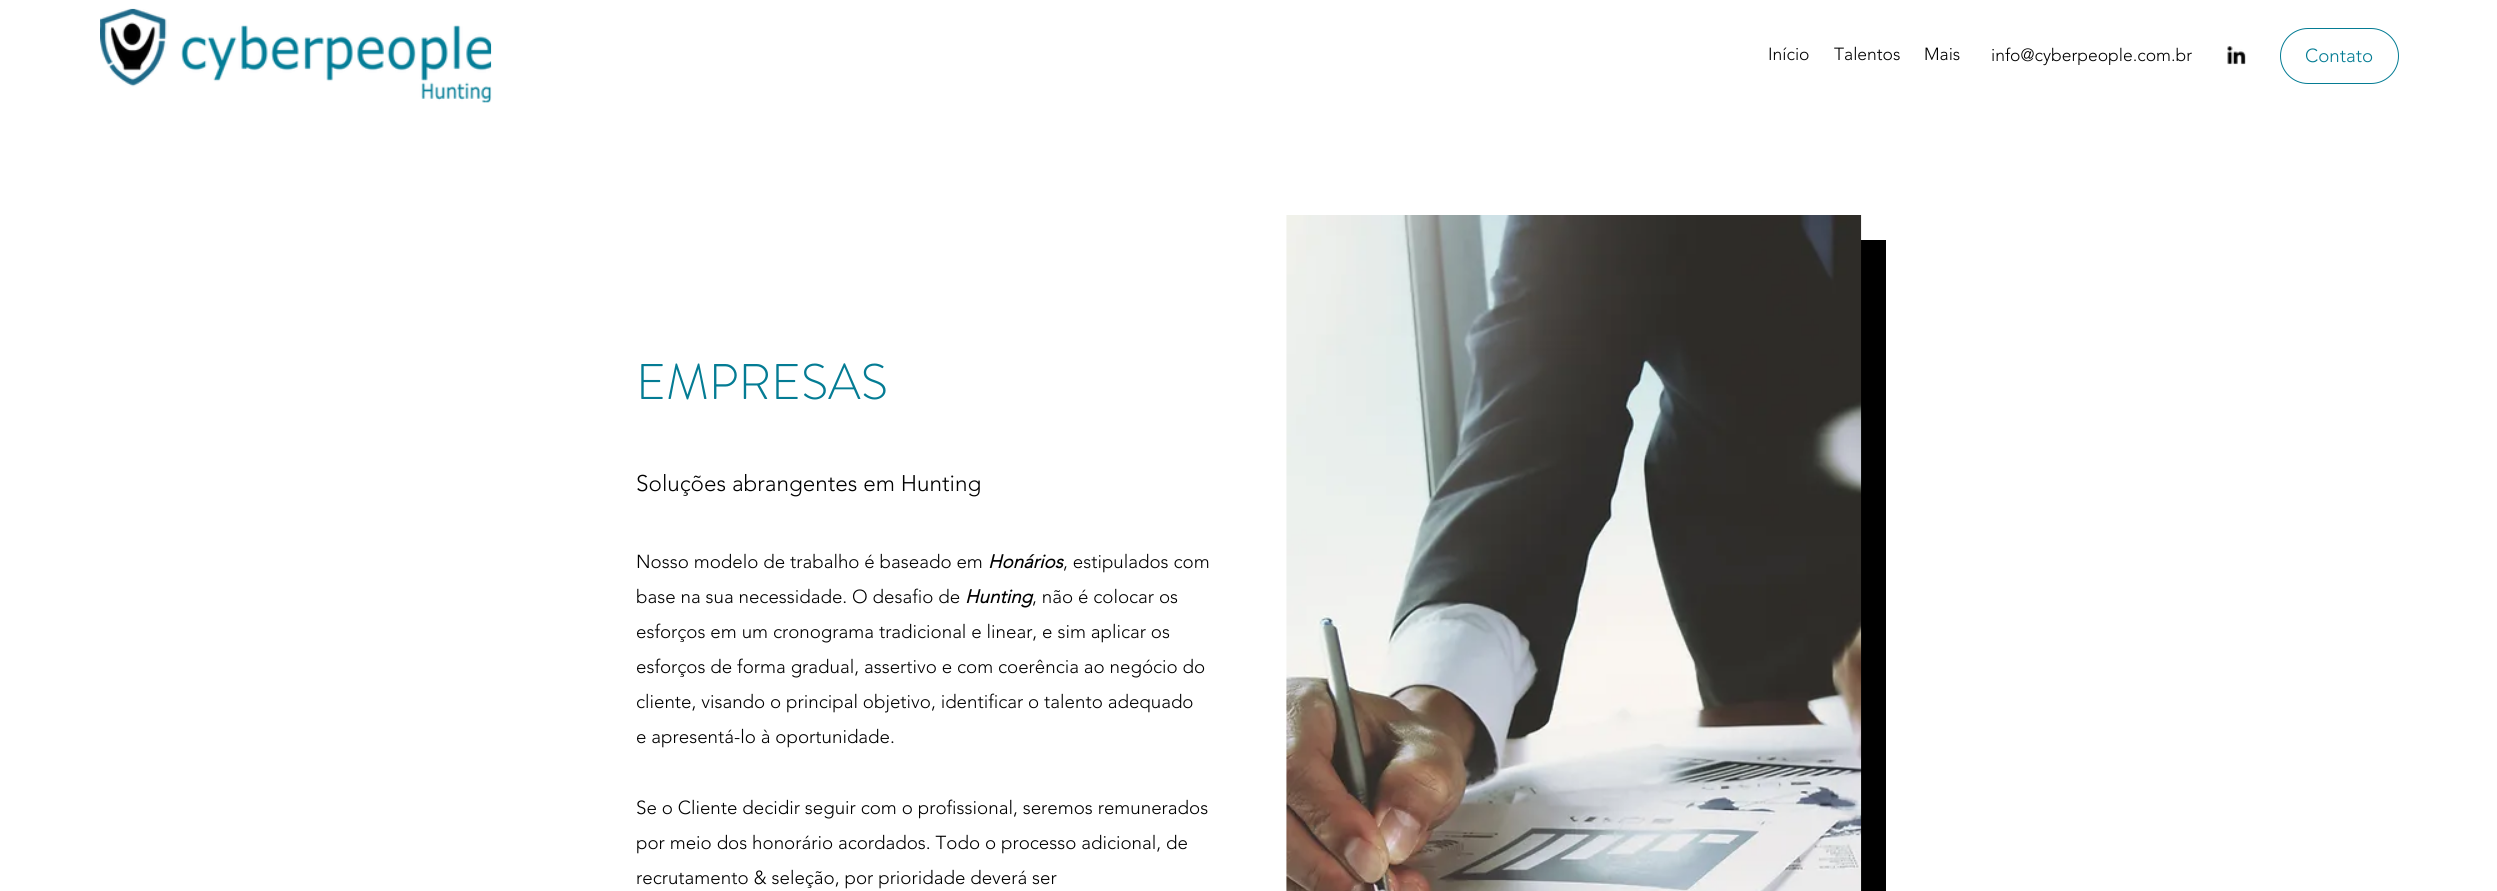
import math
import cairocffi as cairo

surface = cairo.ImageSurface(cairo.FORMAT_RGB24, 2497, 891)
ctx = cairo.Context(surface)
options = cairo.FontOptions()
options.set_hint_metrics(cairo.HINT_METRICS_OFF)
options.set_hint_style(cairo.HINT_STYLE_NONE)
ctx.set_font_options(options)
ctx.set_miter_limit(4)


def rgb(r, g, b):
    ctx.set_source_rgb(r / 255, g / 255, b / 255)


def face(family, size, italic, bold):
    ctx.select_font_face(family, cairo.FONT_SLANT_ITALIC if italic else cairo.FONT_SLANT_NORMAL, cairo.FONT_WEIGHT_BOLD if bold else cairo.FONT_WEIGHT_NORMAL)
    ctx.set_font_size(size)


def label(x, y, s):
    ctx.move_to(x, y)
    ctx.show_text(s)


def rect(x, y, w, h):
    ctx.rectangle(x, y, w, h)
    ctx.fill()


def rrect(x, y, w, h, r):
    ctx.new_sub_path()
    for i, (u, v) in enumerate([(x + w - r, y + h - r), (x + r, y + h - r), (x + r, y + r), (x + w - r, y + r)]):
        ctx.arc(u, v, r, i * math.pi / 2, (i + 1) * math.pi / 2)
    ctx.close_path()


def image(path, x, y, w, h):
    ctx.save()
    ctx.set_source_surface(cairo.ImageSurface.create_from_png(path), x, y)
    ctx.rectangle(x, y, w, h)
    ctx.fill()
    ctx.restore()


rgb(255, 255, 255)
ctx.paint()
image('image0.png', 100, 8, 392, 95)
face('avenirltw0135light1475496 Light', 17.5, 0, 0)
rgb(0, 0, 0)
label(1768, 60, 'Início')
label(1834, 60, 'Talentos')
label(1924, 60, 'Mais')
label(1991, 61, 'info@cyberpeople.com.br')
image('image1.png', 2227, 46, 19, 19)
rrect(2280.5, 28.5, 118, 55, 27.5)
rgb(4, 124, 148)
ctx.set_line_width(1)
ctx.stroke()
face('avenirltw0135light1475496 Light', 18.75, 0, 0)
label(2305, 62, 'Contato')
face('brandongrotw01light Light', 50, 0, 0)
label(636, 399, 'EMPRESAS')
face('avenirltw0135light1475496 Light', 22.5, 0, 0)
rgb(0, 0, 0)
label(636, 491, 'Soluções abrangentes em Hunting')
face('avenirltw0135light1475496 Light', 18.75, 0, 0)
label(636, 568, 'Nosso modelo de trabalho é baseado em')
face('avenirltw0135light1475496', 18.75, 1, 1)
label(988, 568, 'Honários')
face('avenirltw0135light1475496 Light', 18.75, 0, 0)
label(1063, 568, ', estipulados com')
label(636, 603, 'base na sua necessidade. O desafio de')
face('avenirltw0135light1475496', 18.75, 1, 1)
label(965, 603, 'Hunting')
face('avenirltw0135light1475496 Light', 18.75, 0, 0)
label(1032, 603, ', não é colocar os')
label(636, 638, 'esforços em um cronograma tradicional e linear, e sim aplicar os')
label(636, 673, 'esforços de forma gradual, assertivo e com coerência ao negócio do')
label(636, 708, 'cliente, visando o principal objetivo, identificar o talento adequado')
label(636, 743, 'e apresentá-lo à oportunidade.')
label(636, 814, 'Se o Cliente decidir seguir com o profissional, seremos remunerados')
label(636, 849, 'por meio dos honorário acordados. Todo o processo adicional, de')
label(636, 884, 'recrutamento & seleção, por prioridade deverá ser')
rect(1861, 240, 25, 651)
image('image2.png', 1286, 215, 576, 676)
surface.write_to_png('render.png')
